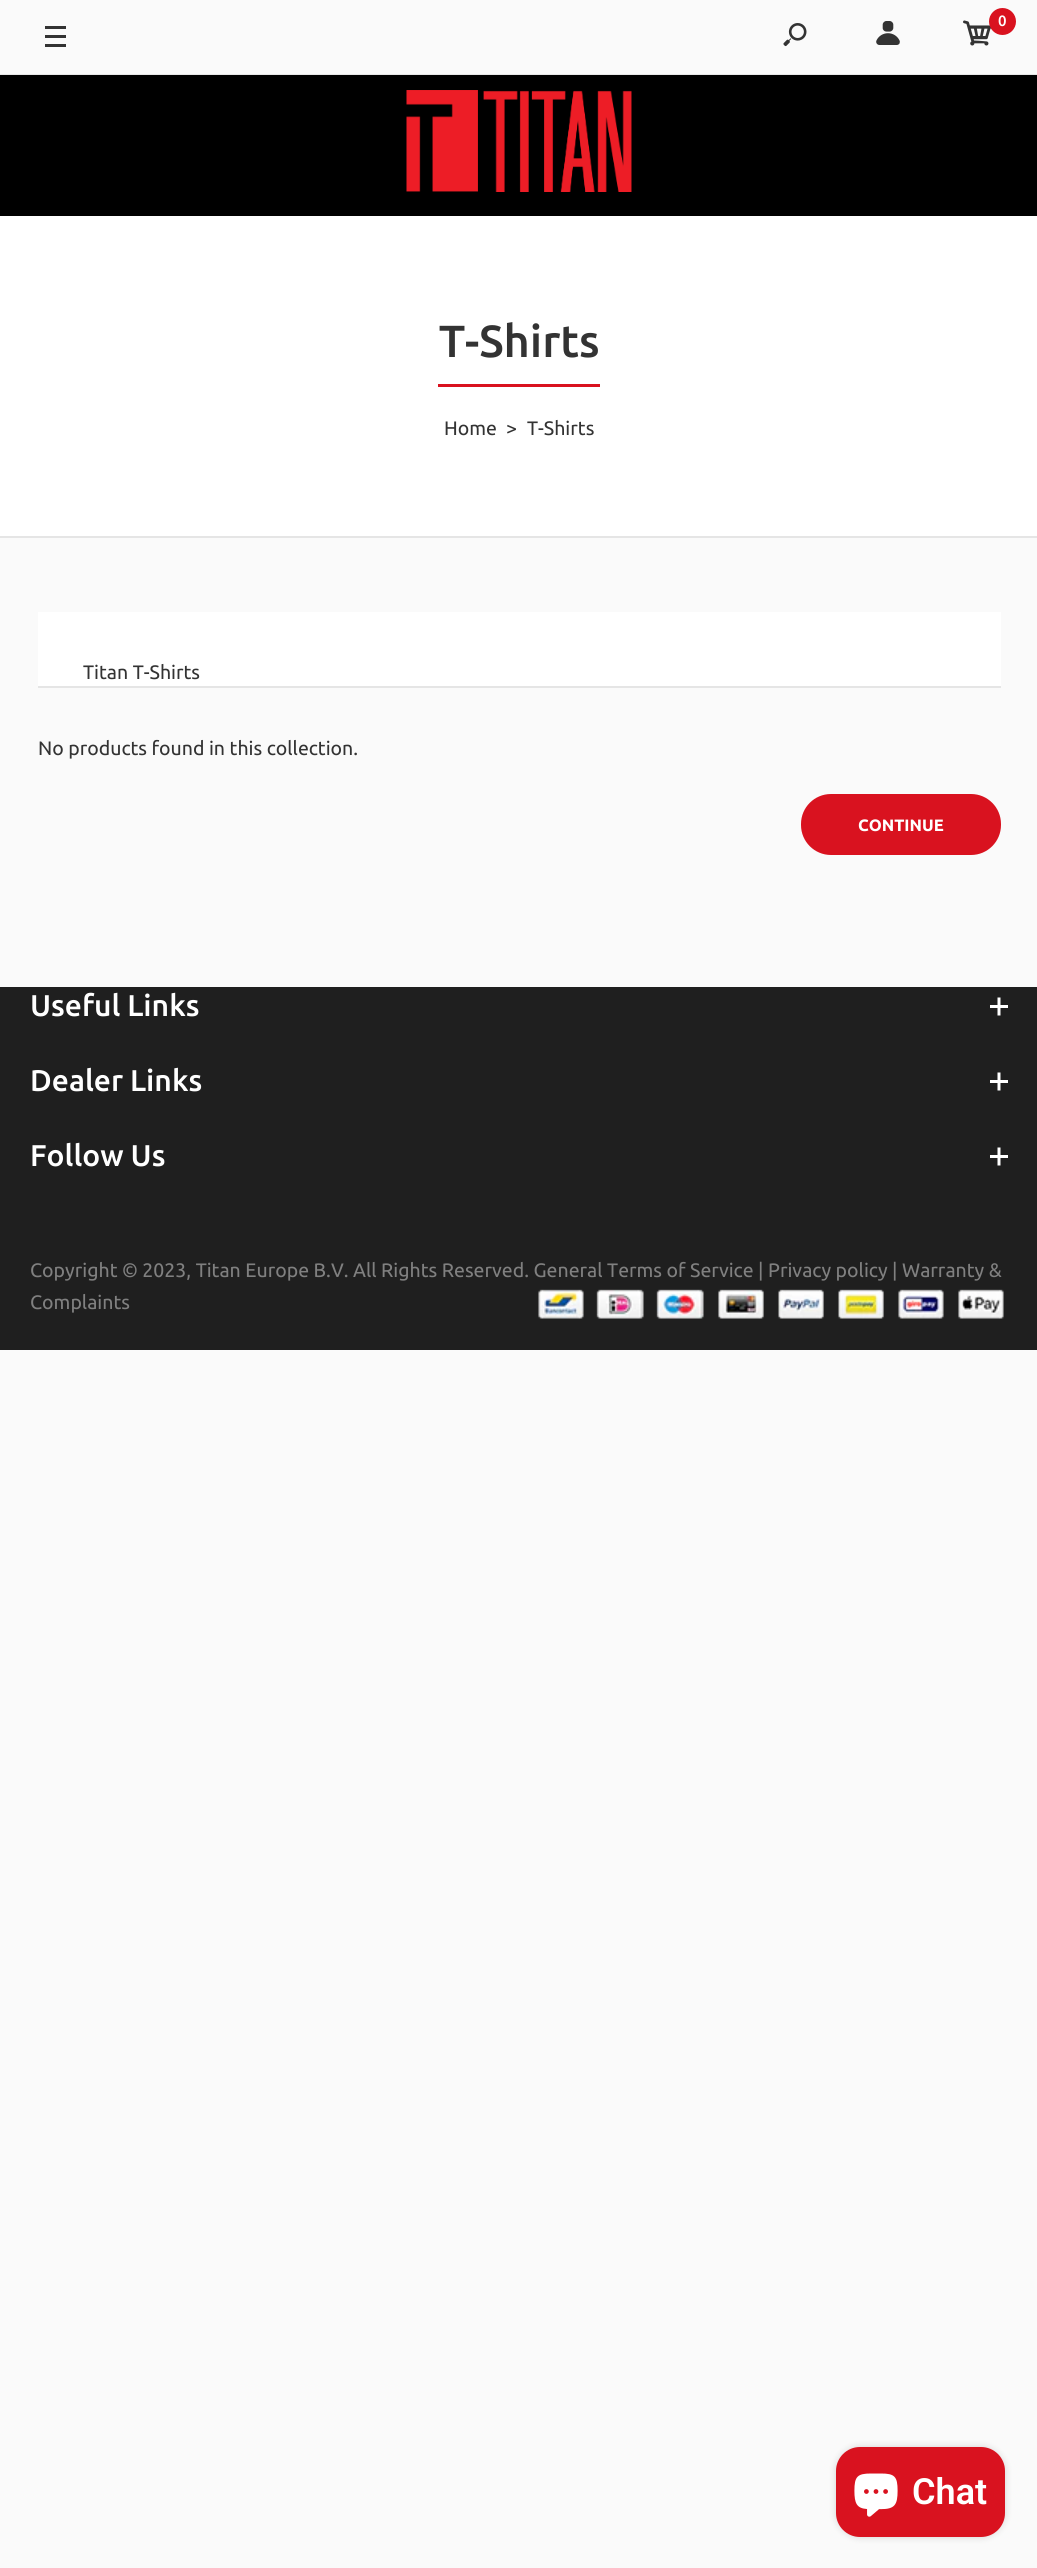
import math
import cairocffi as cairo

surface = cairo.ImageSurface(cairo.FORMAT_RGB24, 1037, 2568)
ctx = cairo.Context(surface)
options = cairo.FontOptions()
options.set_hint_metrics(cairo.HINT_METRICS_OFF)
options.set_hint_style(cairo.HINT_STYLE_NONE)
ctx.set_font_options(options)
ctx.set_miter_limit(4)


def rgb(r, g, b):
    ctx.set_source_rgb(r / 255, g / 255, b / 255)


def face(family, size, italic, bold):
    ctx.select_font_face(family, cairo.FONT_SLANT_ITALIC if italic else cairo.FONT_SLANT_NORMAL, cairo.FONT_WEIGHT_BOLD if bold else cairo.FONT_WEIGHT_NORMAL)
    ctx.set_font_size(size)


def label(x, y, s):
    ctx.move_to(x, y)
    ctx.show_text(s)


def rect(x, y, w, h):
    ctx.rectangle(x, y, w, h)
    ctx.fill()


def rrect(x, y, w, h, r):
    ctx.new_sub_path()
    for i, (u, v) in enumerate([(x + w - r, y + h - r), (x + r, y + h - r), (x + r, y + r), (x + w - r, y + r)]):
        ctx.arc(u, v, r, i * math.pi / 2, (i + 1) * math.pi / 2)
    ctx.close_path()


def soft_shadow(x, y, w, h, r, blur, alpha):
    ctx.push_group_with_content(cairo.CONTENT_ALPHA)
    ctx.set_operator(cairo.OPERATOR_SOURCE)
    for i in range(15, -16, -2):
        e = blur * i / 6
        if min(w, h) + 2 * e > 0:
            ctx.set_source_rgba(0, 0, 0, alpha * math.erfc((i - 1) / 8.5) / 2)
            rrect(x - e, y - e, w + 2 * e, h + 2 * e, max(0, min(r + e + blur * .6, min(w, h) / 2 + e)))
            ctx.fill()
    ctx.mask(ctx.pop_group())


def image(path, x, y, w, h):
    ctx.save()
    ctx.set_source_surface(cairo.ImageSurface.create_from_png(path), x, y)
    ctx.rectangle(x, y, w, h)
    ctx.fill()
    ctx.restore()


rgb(250, 250, 250)
ctx.paint()
rgb(231, 231, 231)
rect(0, 74, 1037, 1)
rgb(51, 51, 51)
rect(45, 35, 21, 3)
rect(45, 26, 21, 3)
rect(45, 44, 21, 3)
image('image0.png', 783, 23, 24, 24)
image('image1.png', 876, 21, 24, 24)
image('image2.png', 963, 20, 29, 26)
rgb(217, 18, 31)
ctx.arc(1002.5, 21.5, 13.5, 0, 2 * math.pi)
ctx.fill()
face('Ubuntu Medium', 15, 0, 0)
rgb(255, 255, 255)
label(998, 26, '0')
rgb(0, 0, 0)
rect(0, 75, 1037, 141)
image('image3.png', 406, 90, 226, 102)
rgb(255, 255, 255)
rect(0, 216, 1037, 320)
rgb(229, 229, 229)
rect(0, 536, 1037, 2)
rgb(217, 18, 31)
rect(438, 384, 162, 3)
face('Ubuntu Medium', 45, 0, 0)
rgb(51, 51, 51)
label(439, 357, 'T-Shirts')
face('Ubuntu', 19.5, 0, 0)
label(444, 435, 'Home')
label(506, 435, '>')
label(527, 435, 'T-Shirts')
rgb(255, 255, 255)
rect(38, 612, 963, 74)
rgb(51, 51, 51)
label(83, 679, 'Titan T-Shirts')
rgb(229, 229, 229)
rect(38, 686, 963, 2)
rgb(51, 51, 51)
label(38, 755, 'No products found in this collection.')
rgb(217, 18, 31)
rrect(801, 794, 200, 61, 30)
ctx.fill()
face('Ubuntu', 16.5, 0, 1)
rgb(255, 255, 255)
label(858, 831, 'CONTINUE')
rgb(31, 31, 31)
rect(0, 987, 1037, 363)
face('Ubuntu Medium', 30, 0, 0)
rgb(255, 255, 255)
label(30, 1016, 'Useful Links')
image('image4.png', 990, 997, 18, 19)
label(30, 1091, 'Dealer Links')
image('image4.png', 990, 1072, 18, 19)
label(30, 1166, 'Follow Us')
image('image4.png', 990, 1147, 18, 19)
face('Ubuntu', 19.5, 0, 0)
rgb(128, 128, 128)
label(30, 1277, 'Copyright © 2023, Titan Europe B.V. All Rights Reserved. General Terms of Service | Privacy policy | Warranty &')
label(30, 1309, 'Complaints')
image('image5.png', 538, 1289, 466, 30)
rgb(0, 0, 0)
soft_shadow(836, 2447, 169, 90, 24, 4, 0.15)
rgb(217, 18, 31)
rrect(836, 2447, 169, 90, 24)
ctx.fill()
image('image6.png', 854, 2473, 44, 44)
face('Roboto SemiBold', 36, 0, 0)
rgb(255, 255, 255)
label(912, 2504, 'Chat')
surface.write_to_png('render.png')
